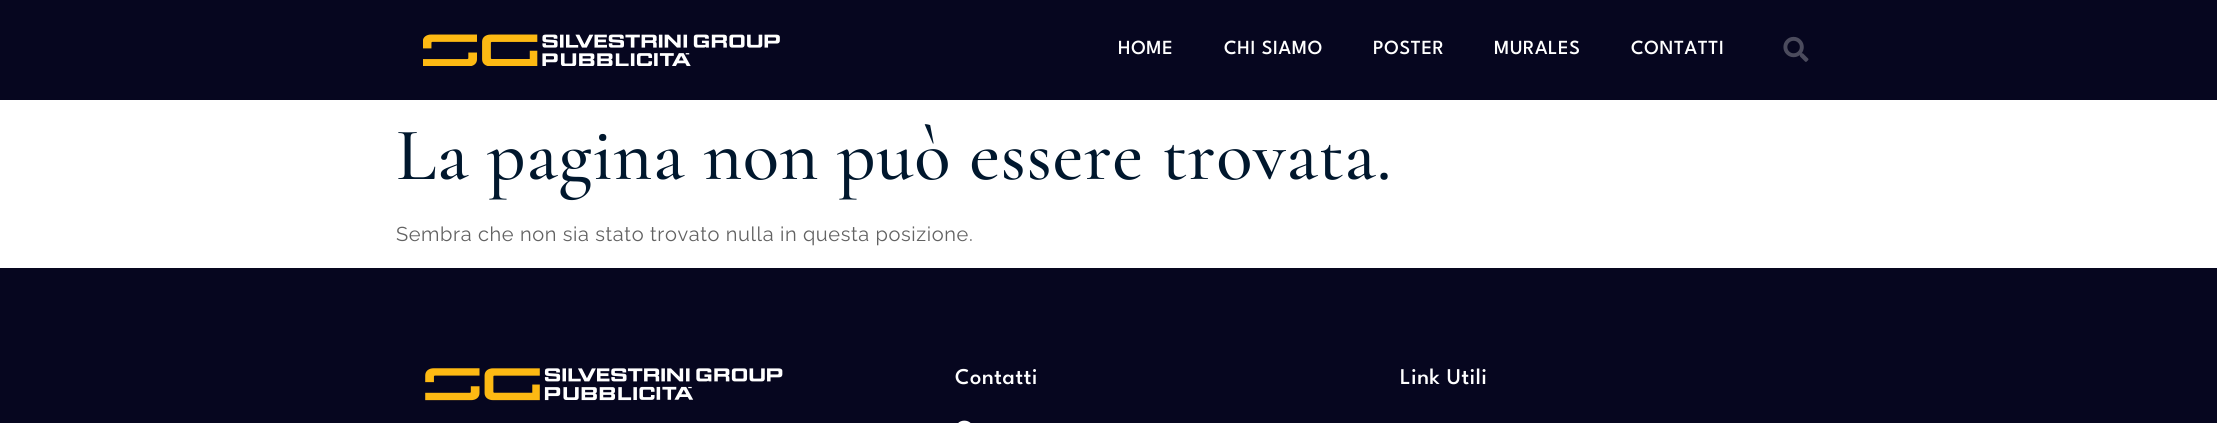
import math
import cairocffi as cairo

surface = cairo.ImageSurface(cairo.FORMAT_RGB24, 2217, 423)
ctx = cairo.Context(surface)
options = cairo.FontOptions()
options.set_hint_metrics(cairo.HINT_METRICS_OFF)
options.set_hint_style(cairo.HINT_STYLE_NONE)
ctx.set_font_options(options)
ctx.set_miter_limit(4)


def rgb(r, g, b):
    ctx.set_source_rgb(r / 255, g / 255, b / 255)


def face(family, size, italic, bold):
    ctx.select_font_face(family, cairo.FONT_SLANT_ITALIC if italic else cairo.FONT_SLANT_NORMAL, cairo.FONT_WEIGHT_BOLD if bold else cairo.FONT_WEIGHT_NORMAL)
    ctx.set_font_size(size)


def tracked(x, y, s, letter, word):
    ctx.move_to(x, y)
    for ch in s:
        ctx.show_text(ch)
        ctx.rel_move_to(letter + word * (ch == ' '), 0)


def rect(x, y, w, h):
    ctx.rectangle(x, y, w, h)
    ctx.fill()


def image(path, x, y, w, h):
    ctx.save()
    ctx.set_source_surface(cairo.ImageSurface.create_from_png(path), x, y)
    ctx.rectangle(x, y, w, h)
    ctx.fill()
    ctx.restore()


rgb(255, 255, 255)
ctx.paint()
rgb(6, 6, 31)
rect(0, 0, 2217, 100)
image('image0.png', 423, 34, 357, 32)
face('League Spartan Medium', 20, 0, 0)
rgb(255, 255, 255)
tracked(1118, 54, 'HOME', 0.62, 0)
tracked(1224, 54, 'CHI SIAMO', 0.62, 0)
tracked(1373, 54, 'POSTER', 0.62, 0)
tracked(1494, 54, 'MURALES', 0.62, 0)
tracked(1631, 54, 'CONTATTI', 0.62, 0)
image('image1.png', 1783, 36, 26, 26)
face('Cormorant Garamond Medium', 75, 0, 0)
rgb(0, 23, 45)
tracked(396, 179, 'La pagina non può essere trovata.', 0.62, 0)
face('Raleway', 20, 0, 0)
rgb(98, 98, 98)
tracked(396, 241, 'Sembra che non sia stato trovato nulla in questa posizione.', 0.62, 0)
rgb(6, 6, 31)
rect(0, 268, 2217, 155)
image('image2.png', 425, 368, 358, 33)
face('League Spartan Medium', 22.5, 0, 0)
rgb(255, 255, 255)
tracked(955, 384, 'Contatti', 0.62, 0)
image('image3.png', 958, 420, 13, 3)
tracked(1400, 384, 'Link Utili', 0.62, 0)
surface.write_to_png('render.png')
